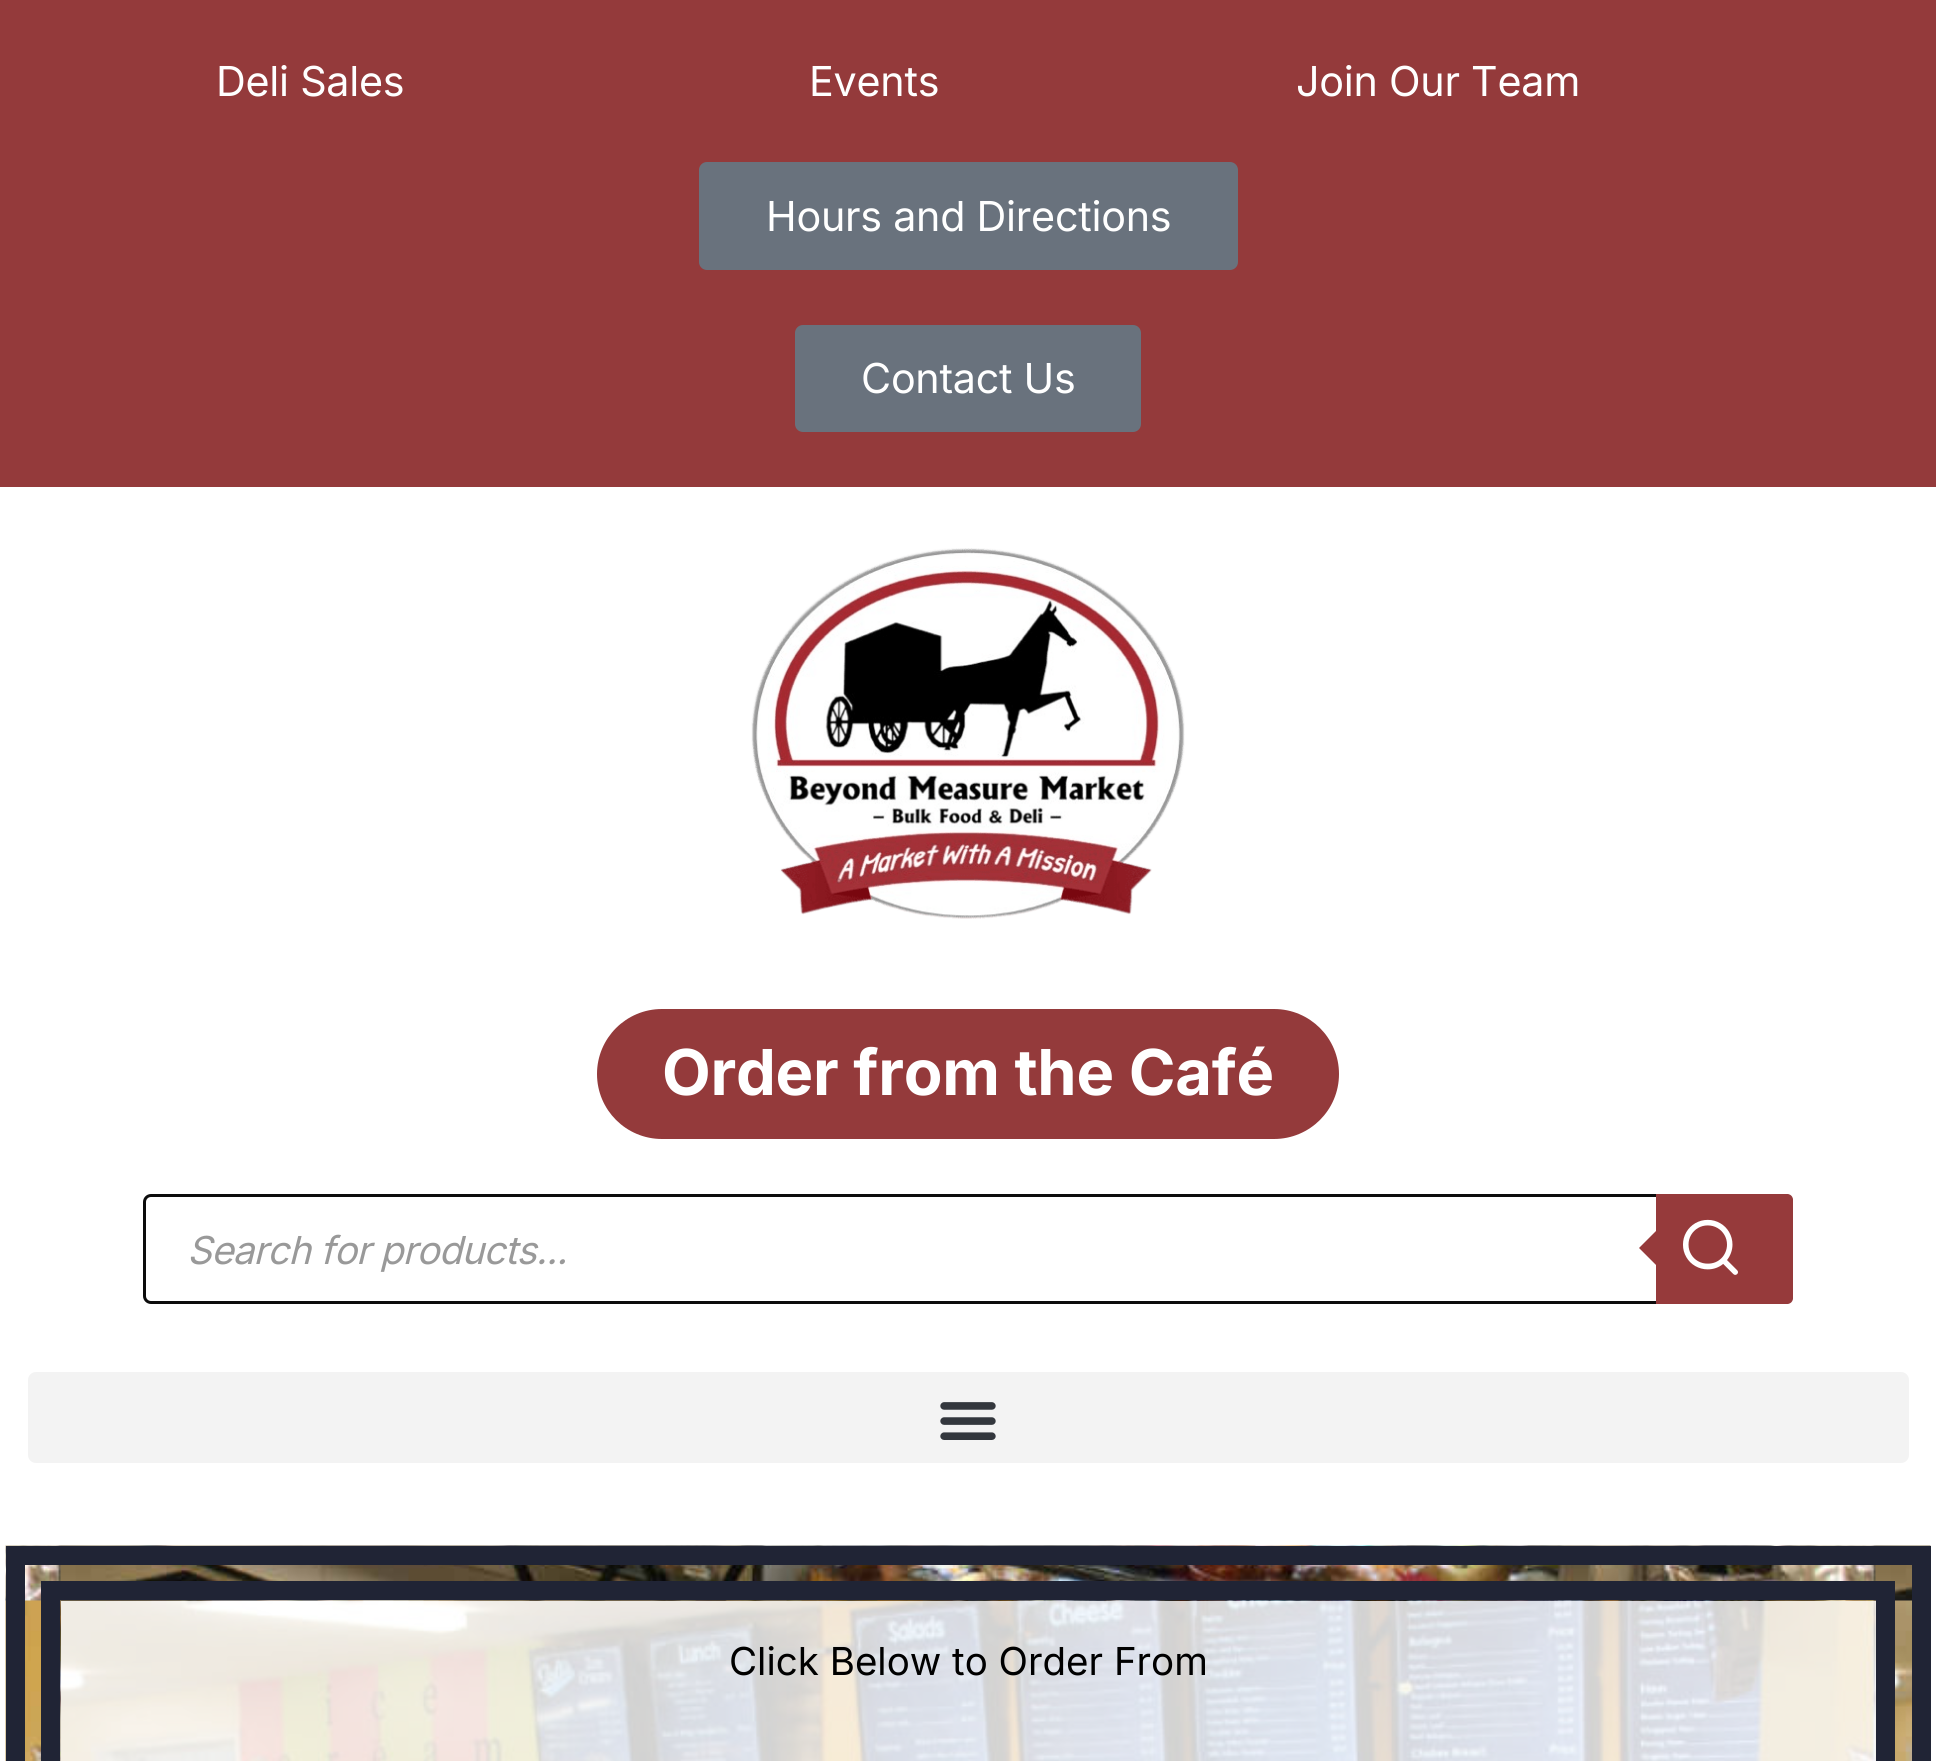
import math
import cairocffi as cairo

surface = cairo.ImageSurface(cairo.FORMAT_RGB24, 1936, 1761)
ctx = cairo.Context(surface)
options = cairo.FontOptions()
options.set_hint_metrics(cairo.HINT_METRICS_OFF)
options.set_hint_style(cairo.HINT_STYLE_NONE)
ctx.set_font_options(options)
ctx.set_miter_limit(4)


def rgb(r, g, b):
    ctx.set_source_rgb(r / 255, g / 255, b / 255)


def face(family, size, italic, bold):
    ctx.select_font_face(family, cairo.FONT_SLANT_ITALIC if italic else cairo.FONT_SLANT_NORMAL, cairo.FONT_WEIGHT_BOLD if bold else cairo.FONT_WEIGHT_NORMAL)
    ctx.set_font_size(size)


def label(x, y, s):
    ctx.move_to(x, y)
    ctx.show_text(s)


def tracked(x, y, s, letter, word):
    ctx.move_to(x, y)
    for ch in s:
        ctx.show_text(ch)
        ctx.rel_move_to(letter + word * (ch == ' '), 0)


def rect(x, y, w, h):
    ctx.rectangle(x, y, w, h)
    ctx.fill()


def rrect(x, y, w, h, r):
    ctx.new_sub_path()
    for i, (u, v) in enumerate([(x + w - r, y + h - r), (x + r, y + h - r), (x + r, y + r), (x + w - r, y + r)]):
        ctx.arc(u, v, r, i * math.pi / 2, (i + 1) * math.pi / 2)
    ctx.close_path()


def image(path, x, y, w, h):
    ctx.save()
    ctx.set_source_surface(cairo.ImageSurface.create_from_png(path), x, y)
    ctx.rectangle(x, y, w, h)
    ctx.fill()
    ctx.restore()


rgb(255, 255, 255)
ctx.paint()
rgb(148, 58, 59)
rect(0, 0, 1936, 487)
face('Inter', 41.25, 0, 0)
rgb(255, 255, 255)
tracked(216, 96, 'Deli Sales', -0.25, 0)
tracked(809, 96, 'Events', -0.25, 0)
tracked(1296, 96, 'Join Our Team', -0.25, 0)
rgb(105, 114, 125)
rrect(699, 162, 539, 108, 8)
ctx.fill()
rgb(255, 255, 255)
tracked(766, 231, 'Hours and Directions', -0.25, 0)
rgb(105, 114, 125)
rrect(795, 325, 346, 107, 8)
ctx.fill()
rgb(255, 255, 255)
tracked(861, 393, 'Contact Us', -0.25, 0)
image('image0.png', 751, 548, 434, 371)
rgb(148, 58, 59)
rrect(597, 1009, 742, 130, 65)
ctx.fill()
face('Inter', 63.25, 0, 1)
rgb(255, 255, 255)
tracked(662, 1095, 'Order from the Café', -0.25, 0)
rrect(144.5, 1195.5, 1647, 107, 6.5)
rgb(12, 12, 12)
ctx.set_line_width(3)
ctx.stroke()
rgb(150, 58, 59)
ctx.new_path()
ctx.move_to(1656, 1194)
ctx.line_to(1787, 1194)
ctx.curve_to(1790.5, 1194, 1793, 1196.5, 1793, 1200)
ctx.line_to(1793, 1298)
ctx.curve_to(1793, 1301.5, 1790.5, 1304, 1787, 1304)
ctx.line_to(1656, 1304)
ctx.close_path()
ctx.fill()
ctx.new_path()
ctx.move_to(1661, 1226)
ctx.line_to(1661, 1270)
ctx.line_to(1639, 1248)
ctx.close_path()
ctx.fill()
face('Inter', 38.5, 1, 0)
rgb(153, 153, 153)
tracked(187, 1264, 'Search for products...', -0.8, 0)
image('image1.png', 1683, 1219, 55, 56)
rgb(243, 243, 243)
rrect(28, 1372, 1881, 91, 8)
ctx.fill()
image('image2.png', 940, 1402, 56, 38)
image('image3.png', 5, 1545, 1926, 216)
ctx.rectangle(15.5, 1555.5, 1906, 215)
rgb(32, 36, 53)
ctx.set_line_width(19)
ctx.stroke()
ctx.rectangle(50.5, 1590.5, 1835, 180)
ctx.stroke()
ctx.set_source_rgba(1, 1, 1, 0.82)
rect(61, 1601, 1815, 160)
face('Inter', 38.5, 0, 0)
rgb(0, 0, 0)
label(729, 1675, 'Click Below to Order From')
surface.write_to_png('render.png')
